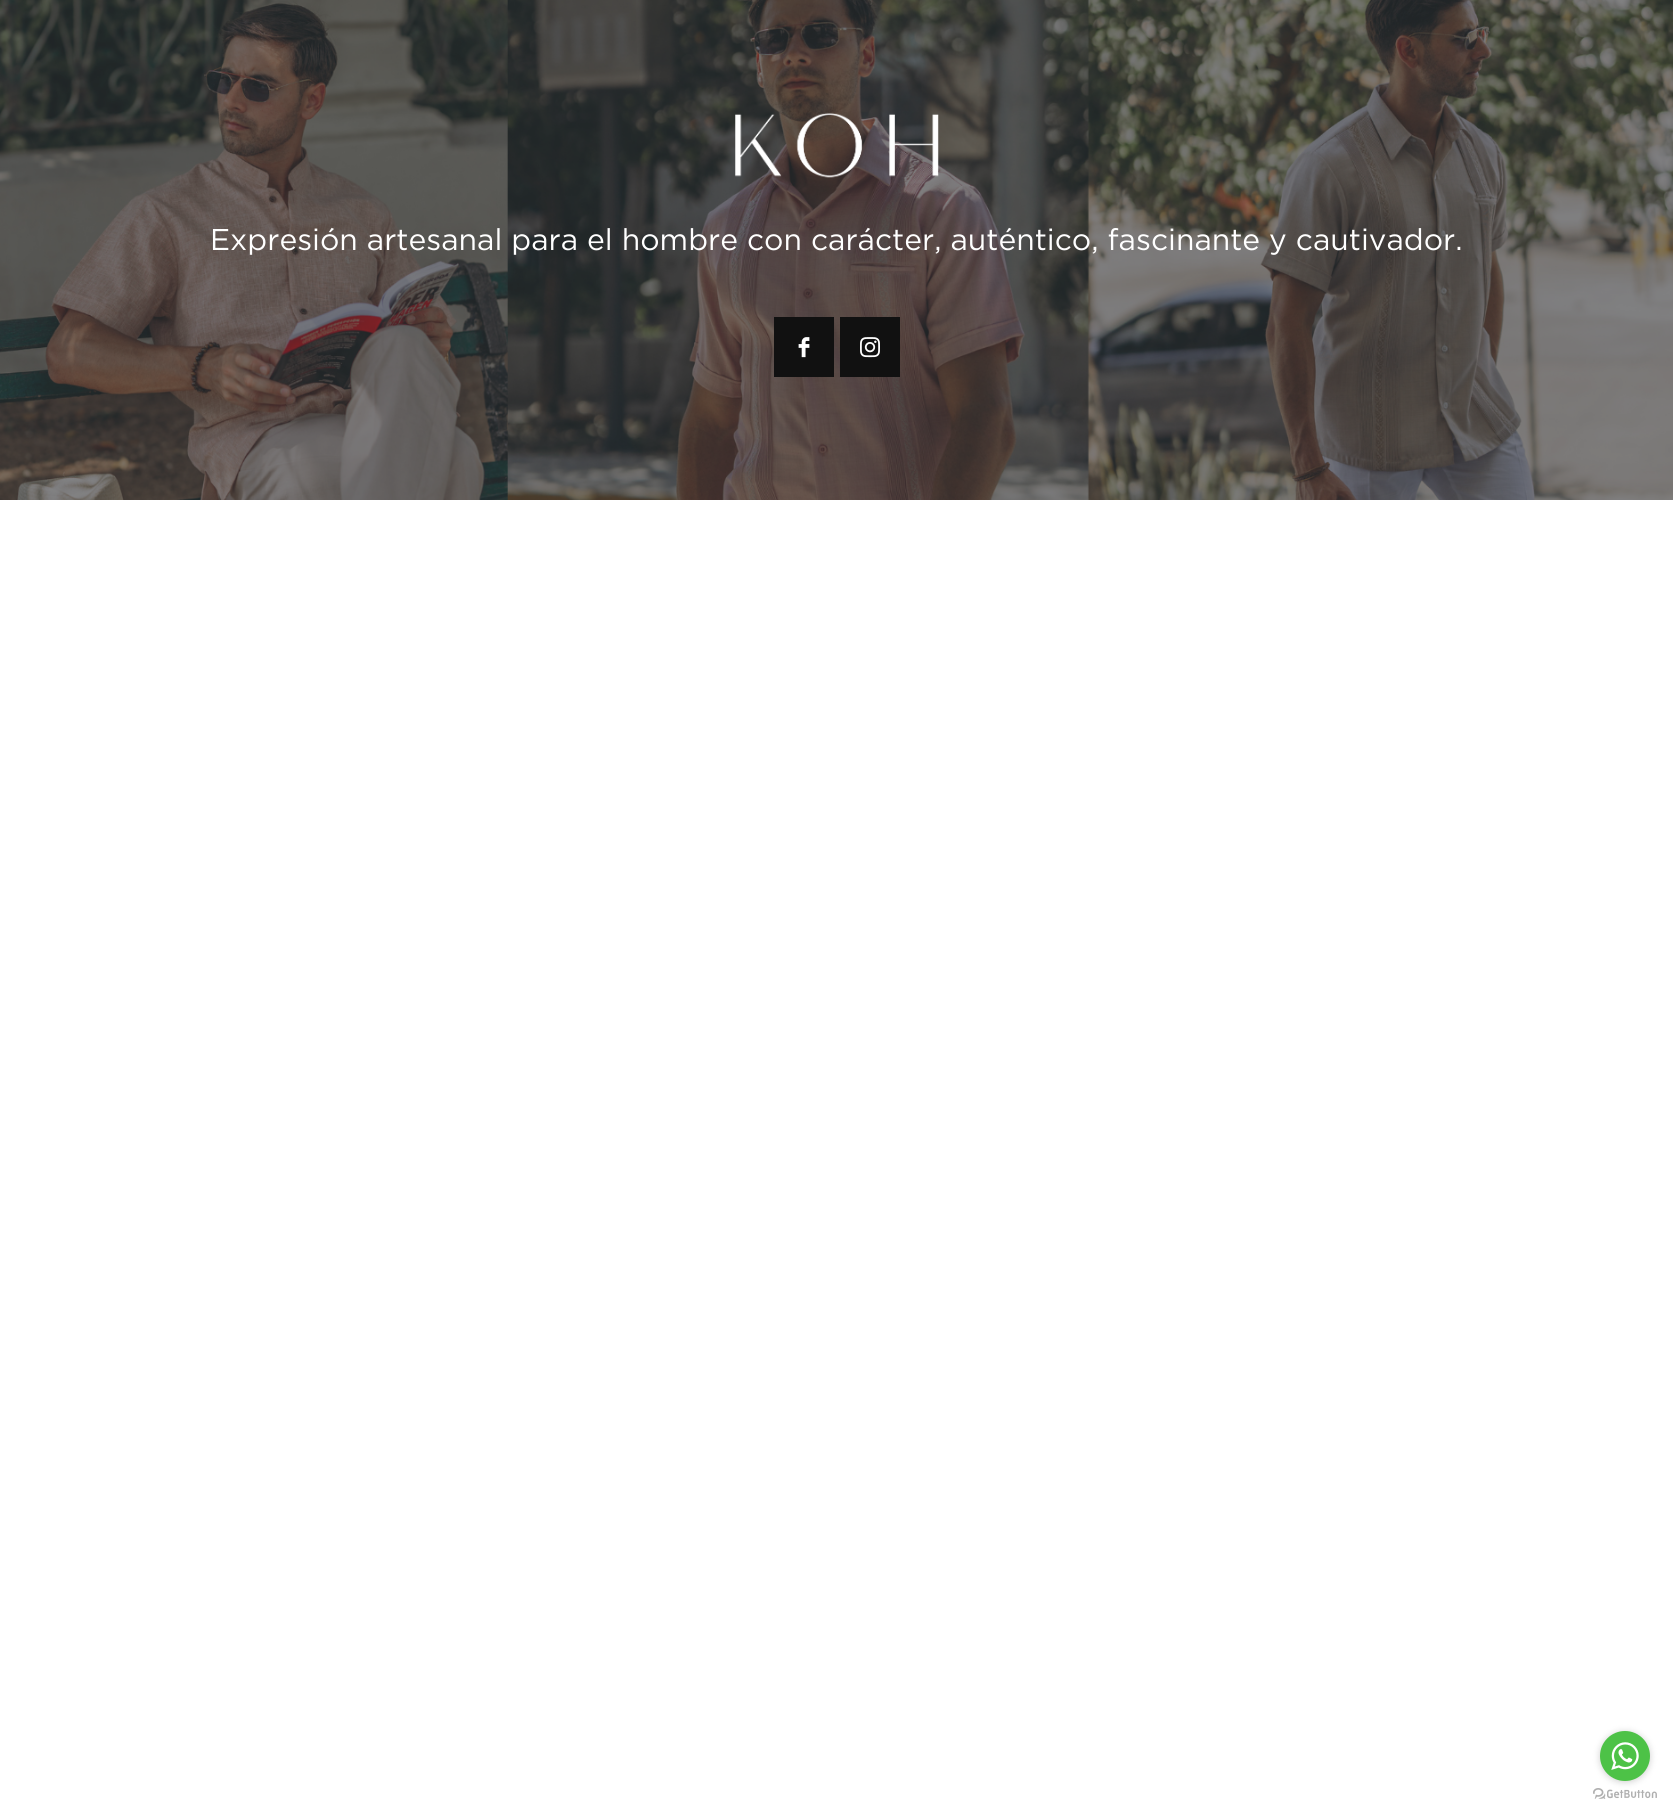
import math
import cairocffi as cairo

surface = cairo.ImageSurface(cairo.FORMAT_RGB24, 1673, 1815)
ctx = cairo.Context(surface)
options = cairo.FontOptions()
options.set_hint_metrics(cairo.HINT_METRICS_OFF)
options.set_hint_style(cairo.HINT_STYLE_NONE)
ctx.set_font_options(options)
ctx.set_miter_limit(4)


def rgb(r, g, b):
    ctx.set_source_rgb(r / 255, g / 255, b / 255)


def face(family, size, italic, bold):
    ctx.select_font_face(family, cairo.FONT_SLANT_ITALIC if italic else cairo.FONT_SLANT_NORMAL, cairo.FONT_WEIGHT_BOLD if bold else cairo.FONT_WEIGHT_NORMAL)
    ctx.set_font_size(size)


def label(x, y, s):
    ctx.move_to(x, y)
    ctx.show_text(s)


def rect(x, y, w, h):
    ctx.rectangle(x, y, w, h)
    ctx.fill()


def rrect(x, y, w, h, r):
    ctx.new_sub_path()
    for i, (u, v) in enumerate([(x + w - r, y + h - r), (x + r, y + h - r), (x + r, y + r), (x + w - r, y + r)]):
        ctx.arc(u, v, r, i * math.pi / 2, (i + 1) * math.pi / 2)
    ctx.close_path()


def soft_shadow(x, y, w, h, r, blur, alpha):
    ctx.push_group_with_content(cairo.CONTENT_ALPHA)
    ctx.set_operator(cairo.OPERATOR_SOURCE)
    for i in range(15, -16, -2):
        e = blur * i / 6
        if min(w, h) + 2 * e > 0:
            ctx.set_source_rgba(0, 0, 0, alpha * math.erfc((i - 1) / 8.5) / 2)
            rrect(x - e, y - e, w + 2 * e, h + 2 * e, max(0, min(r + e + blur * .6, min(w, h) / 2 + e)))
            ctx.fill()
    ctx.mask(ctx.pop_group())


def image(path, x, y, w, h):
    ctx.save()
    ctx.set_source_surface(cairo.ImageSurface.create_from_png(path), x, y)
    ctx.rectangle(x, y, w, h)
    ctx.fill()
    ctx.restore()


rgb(255, 255, 255)
ctx.paint()
image('image0.png', 0, 0, 1673, 500)
image('image1.png', 735, 112, 204, 66)
face('Gotham', 30, 0, 0)
rgb(255, 255, 255)
label(210, 250, 'Expresión artesanal para el hombre con carácter, auténtico, fascinante y cautivador.')
rgb(17, 17, 17)
rect(774, 317, 60, 60)
image('image2.png', 798, 337, 12, 21)
rect(840, 317, 60, 60)
image('image3.png', 860, 337, 20, 21)
image('image5.png', 1593, 1788, 64, 11)
rgb(136, 136, 136)
soft_shadow(1600, 1732, 50, 50, 25, 3.5, 0.4)
rgb(77, 194, 71)
ctx.arc(1625, 1756, 25, 0, 2 * math.pi)
ctx.fill()
image('image4.png', 1611, 1742, 28, 28)
surface.write_to_png('render.png')
